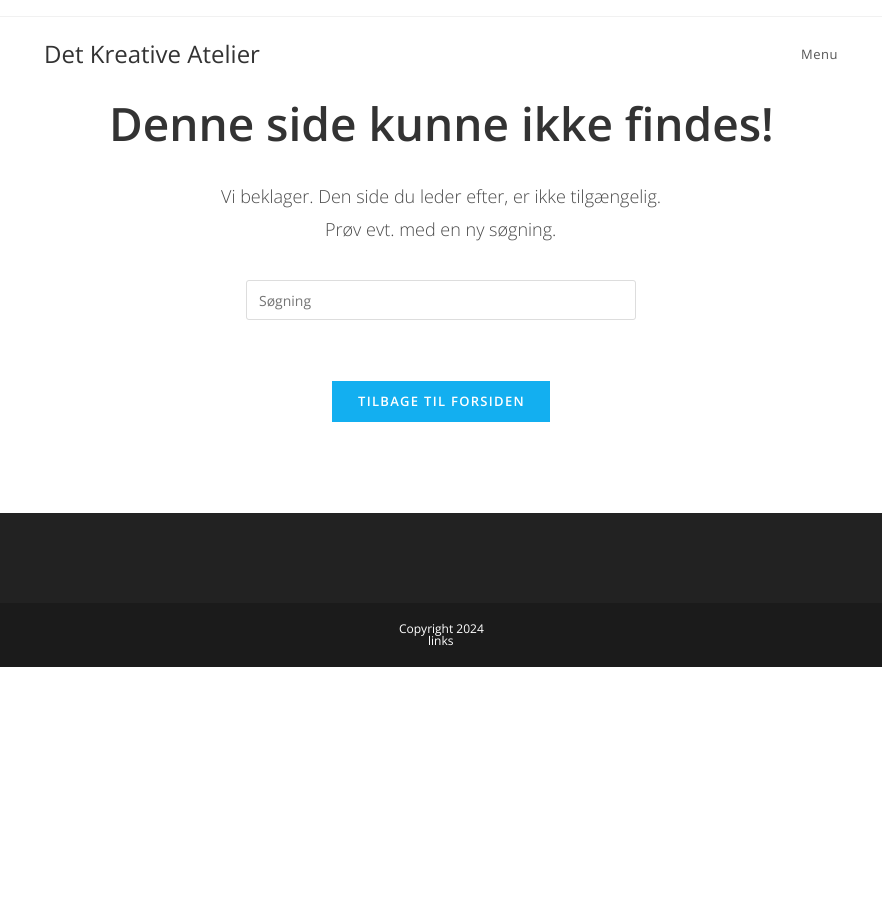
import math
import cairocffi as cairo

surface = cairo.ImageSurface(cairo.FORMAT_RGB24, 882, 912)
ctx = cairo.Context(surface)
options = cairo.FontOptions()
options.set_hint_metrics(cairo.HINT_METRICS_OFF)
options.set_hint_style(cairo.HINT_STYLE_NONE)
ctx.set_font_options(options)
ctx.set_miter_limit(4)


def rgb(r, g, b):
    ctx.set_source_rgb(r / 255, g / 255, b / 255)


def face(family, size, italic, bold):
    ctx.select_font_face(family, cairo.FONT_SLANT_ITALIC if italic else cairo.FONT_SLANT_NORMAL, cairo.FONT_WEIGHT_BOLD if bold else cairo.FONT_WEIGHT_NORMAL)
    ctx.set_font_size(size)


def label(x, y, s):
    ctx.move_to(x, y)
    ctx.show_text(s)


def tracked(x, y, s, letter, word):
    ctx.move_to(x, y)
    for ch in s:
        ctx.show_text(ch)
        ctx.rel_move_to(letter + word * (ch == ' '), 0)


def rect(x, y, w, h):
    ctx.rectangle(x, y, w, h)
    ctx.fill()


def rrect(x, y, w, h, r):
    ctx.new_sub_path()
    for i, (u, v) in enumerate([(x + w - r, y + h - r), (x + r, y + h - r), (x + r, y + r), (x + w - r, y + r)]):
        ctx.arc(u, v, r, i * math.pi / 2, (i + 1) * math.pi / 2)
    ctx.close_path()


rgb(255, 255, 255)
ctx.paint()
rgb(241, 241, 241)
rect(0, 16, 882, 1)
face('Open Sans', 24, 0, 0)
rgb(51, 51, 51)
label(44, 63, 'Det Kreative Atelier')
face('Open Sans', 13, 0, 0)
rgb(85, 85, 85)
tracked(801, 59, 'Menu', 0.5, 0)
face('Open Sans SemiBold', 46, 0, 0)
rgb(51, 51, 51)
label(109, 141, 'Denne side kunne ikke findes!')
face('Open Sans Light', 18, 0, 0)
rgb(74, 74, 74)
label(221, 203, 'Vi beklager. Den side du leder efter, er ikke tilgængelig.')
label(325, 236, 'Prøv evt. med en ny søgning.')
rrect(246.5, 280.5, 389, 39, 2.5)
rgb(221, 221, 221)
ctx.set_line_width(1)
ctx.stroke()
face('Open Sans', 14, 0, 0)
rgb(117, 117, 117)
label(259, 306, 'Søgning')
rgb(19, 175, 240)
rect(332, 381, 218, 41)
face('Open Sans SemiBold', 13, 0, 0)
rgb(255, 255, 255)
tracked(358, 406, 'TILBAGE TIL FORSIDEN', 1.3, 0)
rgb(34, 34, 34)
rect(0, 513, 882, 90)
rgb(27, 27, 27)
rect(0, 603, 882, 64)
face('Open Sans', 12, 0, 0)
rgb(255, 255, 255)
label(399, 633, 'Copyright 2024')
label(428, 645, 'links')
surface.write_to_png('render.png')
